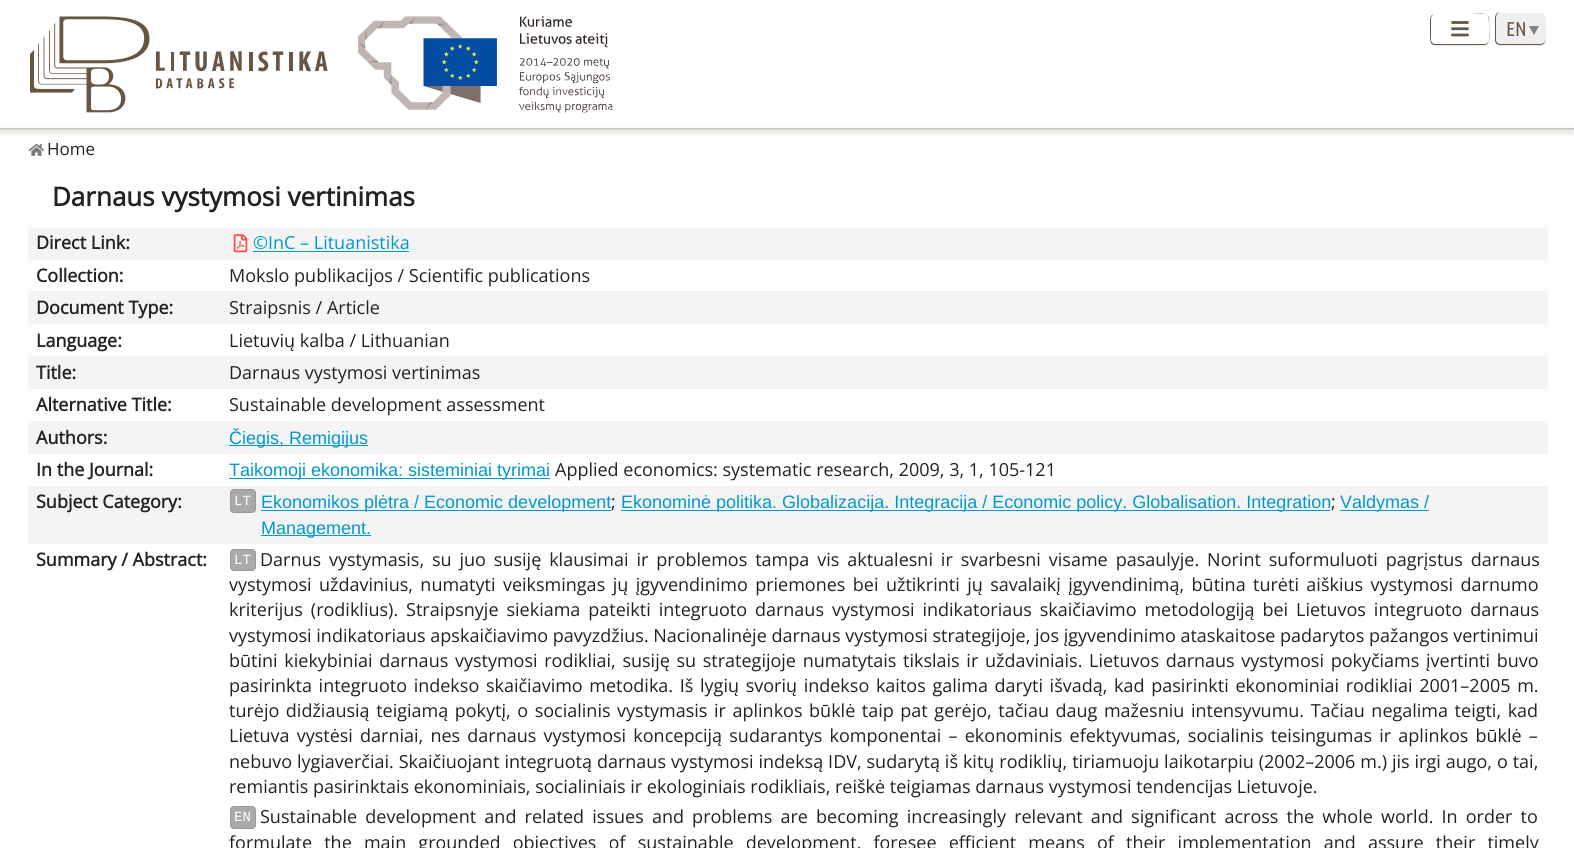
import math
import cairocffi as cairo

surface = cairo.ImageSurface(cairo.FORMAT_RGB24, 1574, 848)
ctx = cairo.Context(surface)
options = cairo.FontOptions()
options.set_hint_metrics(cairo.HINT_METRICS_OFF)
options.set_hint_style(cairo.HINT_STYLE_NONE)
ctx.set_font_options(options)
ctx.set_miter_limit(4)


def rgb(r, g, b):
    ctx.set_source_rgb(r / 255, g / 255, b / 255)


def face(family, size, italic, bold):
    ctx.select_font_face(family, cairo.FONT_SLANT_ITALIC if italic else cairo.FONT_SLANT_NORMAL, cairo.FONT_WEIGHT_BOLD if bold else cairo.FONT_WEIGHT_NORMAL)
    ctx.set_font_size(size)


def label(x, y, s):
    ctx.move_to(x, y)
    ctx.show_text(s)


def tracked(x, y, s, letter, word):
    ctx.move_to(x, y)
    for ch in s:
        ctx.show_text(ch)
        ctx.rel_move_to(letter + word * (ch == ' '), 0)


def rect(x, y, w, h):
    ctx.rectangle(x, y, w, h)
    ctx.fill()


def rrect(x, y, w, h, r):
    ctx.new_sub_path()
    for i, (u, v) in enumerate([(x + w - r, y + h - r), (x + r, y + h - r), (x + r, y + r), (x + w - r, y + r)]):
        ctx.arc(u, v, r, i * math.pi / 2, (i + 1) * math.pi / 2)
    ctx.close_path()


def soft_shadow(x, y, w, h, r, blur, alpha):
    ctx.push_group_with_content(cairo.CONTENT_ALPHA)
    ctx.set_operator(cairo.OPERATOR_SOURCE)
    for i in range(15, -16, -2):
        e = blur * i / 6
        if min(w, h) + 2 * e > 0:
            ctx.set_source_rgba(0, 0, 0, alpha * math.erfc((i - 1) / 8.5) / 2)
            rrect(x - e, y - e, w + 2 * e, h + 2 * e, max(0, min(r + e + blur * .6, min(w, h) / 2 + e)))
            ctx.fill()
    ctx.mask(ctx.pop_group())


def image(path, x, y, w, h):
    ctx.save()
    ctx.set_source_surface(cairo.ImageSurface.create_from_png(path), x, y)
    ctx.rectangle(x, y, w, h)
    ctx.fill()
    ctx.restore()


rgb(255, 255, 255)
ctx.paint()
image('image0.png', 30, 16, 298, 97)
image('image1.png', 358, 16, 255, 97)
ctx.save()
ctx.set_fill_rule(cairo.FILL_RULE_EVEN_ODD)
ctx.new_path()
ctx.move_to(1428, 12)
ctx.line_to(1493, 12)
ctx.line_to(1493, 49)
ctx.line_to(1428, 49)
ctx.close_path()
ctx.move_to(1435, 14)
ctx.line_to(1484, 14)
ctx.curve_to(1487, 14, 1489, 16, 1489, 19)
ctx.line_to(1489, 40)
ctx.curve_to(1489, 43, 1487, 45, 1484, 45)
ctx.line_to(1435, 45)
ctx.curve_to(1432, 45, 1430, 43, 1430, 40)
ctx.line_to(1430, 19)
ctx.curve_to(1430, 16, 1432, 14, 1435, 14)
ctx.close_path()
ctx.clip()
rgb(50, 50, 50)
soft_shadow(1431, 15, 59, 31, 5, 0.5, 0.1)
ctx.restore()
rgb(104, 87, 68)
ctx.set_fill_rule(cairo.FILL_RULE_EVEN_ODD)
ctx.new_path()
ctx.move_to(1435, 14)
ctx.line_to(1468, 14)
ctx.curve_to(1489, 14, 1489, 10, 1489, 29)
ctx.curve_to(1489, 34, 1491, 45, 1484, 45)
ctx.line_to(1443, 45)
ctx.curve_to(1433, 45, 1430, 47, 1430, 36)
ctx.line_to(1430, 22)
ctx.curve_to(1430, 19, 1430, 14, 1435, 14)
ctx.close_path()
ctx.move_to(1435, 14)
ctx.line_to(1484, 14)
ctx.curve_to(1487, 14, 1489, 16, 1489, 19)
ctx.line_to(1489, 40)
ctx.curve_to(1489, 42, 1487, 44, 1484, 44)
ctx.line_to(1435, 44)
ctx.curve_to(1433, 44, 1431, 42, 1431, 40)
ctx.line_to(1431, 19)
ctx.curve_to(1431, 16, 1433, 14, 1435, 14)
ctx.close_path()
ctx.fill()
image('image2.png', 1451, 21, 18, 16)
rgb(50, 50, 50)
soft_shadow(1496, 14, 50, 32, 5, 0.5, 0.1)
rgb(239, 239, 239)
rrect(1495, 13, 50, 32, 5)
ctx.fill()
rgb(104, 87, 68)
ctx.new_path()
ctx.move_to(1500, 12)
ctx.line_to(1540, 12)
ctx.curve_to(1543, 12, 1545, 15, 1545, 18)
ctx.line_to(1545, 40)
ctx.curve_to(1545, 43, 1543, 45, 1540, 45)
ctx.line_to(1500, 45)
ctx.curve_to(1497, 45, 1495, 43, 1495, 40)
ctx.line_to(1495, 18)
ctx.curve_to(1495, 15, 1497, 12, 1500, 12)
ctx.close_path()
ctx.move_to(1500, 12)
ctx.line_to(1540, 12)
ctx.curve_to(1543, 12, 1545, 15, 1545, 18)
ctx.line_to(1545, 40)
ctx.curve_to(1545, 42, 1543, 44, 1540, 44)
ctx.line_to(1500, 44)
ctx.curve_to(1498, 44, 1496, 42, 1496, 40)
ctx.line_to(1496, 18)
ctx.curve_to(1496, 15, 1498, 12, 1500, 12)
ctx.close_path()
ctx.fill()
face('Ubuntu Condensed', 20, 0, 0)
label(1506, 36, 'EN')
rgb(131, 131, 131)
ctx.set_fill_rule(cairo.FILL_RULE_WINDING)
ctx.new_path()
ctx.move_to(1529, 26)
ctx.line_to(1539, 26)
ctx.line_to(1534, 35)
ctx.close_path()
ctx.fill()
rgb(217, 213, 208)
soft_shadow(-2, 130, 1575, 3, 0, 2.5, 0.8)
rgb(200, 200, 200)
rect(0, 128, 1574, 1)
rgb(217, 213, 208)
rect(0, 129, 1574, 1)
image('image3.png', 28, 143, 16, 13)
face('Open Sans', 17, 0, 0)
rgb(34, 34, 34)
label(47, 155, 'Home')
face('Open Sans', 26, 0, 1)
label(52, 206, 'Darnaus vystymosi vertinimas')
rgb(244, 244, 244)
rect(28, 228, 1520, 32)
face('Open Sans', 18, 0, 1)
rgb(34, 34, 34)
label(36, 249, 'Direct Link:')
image('image4.png', 233, 234, 15, 19)
face('Open Sans', 18, 0, 0)
rgb(0, 153, 204)
label(253, 249, '©InC – Lituanistika')
rect(253, 251, 156, 1)
face('Open Sans', 18, 0, 1)
rgb(34, 34, 34)
label(36, 282, 'Collection:')
face('Open Sans', 18, 0, 0)
label(229, 282, 'Mokslo publikacijos / Scientific publications')
rgb(244, 244, 244)
rect(28, 291, 1520, 33)
face('Open Sans', 18, 0, 1)
rgb(34, 34, 34)
label(36, 314, 'Document Type:')
face('Open Sans', 18, 0, 0)
label(229, 314, 'Straipsnis / Article')
face('Open Sans', 18, 0, 1)
label(36, 347, 'Language:')
face('Open Sans', 18, 0, 0)
label(229, 347, 'Lietuvių kalba / Lithuanian')
rgb(244, 244, 244)
rect(28, 356, 1520, 33)
face('Open Sans', 18, 0, 1)
rgb(34, 34, 34)
label(36, 379, 'Title:')
face('Open Sans', 18, 0, 0)
label(229, 379, 'Darnaus vystymosi vertinimas')
face('Open Sans', 18, 0, 1)
label(36, 411, 'Alternative Title:')
face('Open Sans', 18, 0, 0)
label(229, 411, 'Sustainable development assessment')
rgb(244, 244, 244)
rect(28, 421, 1520, 33)
face('Open Sans', 18, 0, 1)
rgb(34, 34, 34)
label(36, 444, 'Authors:')
rgb(0, 153, 204)
rect(229, 445, 139, 1)
face('Liberation Sans', 18, 0, 0)
label(229, 444, 'Čiegis, Remigijus')
face('Open Sans', 18, 0, 1)
rgb(34, 34, 34)
label(36, 476, 'In the Journal:')
rgb(0, 153, 204)
rect(229, 478, 321, 1)
face('Liberation Sans', 18, 0, 0)
label(229, 476, 'Taikomoji ekonomika: sisteminiai tyrimai')
face('Open Sans', 18, 0, 0)
rgb(34, 34, 34)
label(555, 476, 'Applied economics: systematic research, 2009, 3, 1, 105-121')
rgb(244, 244, 244)
rect(28, 486, 1520, 58)
face('Open Sans', 18, 0, 1)
rgb(34, 34, 34)
label(36, 508, 'Subject Category:')
rgb(170, 170, 170)
rrect(230.5, 489.5, 25, 23, 3.5)
ctx.fill_preserve()
rgb(153, 153, 153)
ctx.set_line_width(1)
ctx.stroke()
face('Liberation Mono', 14, 0, 0)
rgb(255, 255, 255)
label(234, 505, 'LT')
rgb(0, 153, 204)
rect(261, 510, 350, 1)
face('Liberation Sans', 18, 0, 0)
label(261, 508, 'Ekonomikos plėtra / Economic development')
face('Open Sans', 18, 0, 0)
rgb(34, 34, 34)
label(611, 508, ';')
rgb(0, 153, 204)
rect(621, 510, 709, 1)
face('Liberation Sans', 18, 0, 0)
label(621, 508, 'Ekonominė politika. Globalizacija. Integracija / Economic policy. Globalisation. Integration')
face('Open Sans', 18, 0, 0)
rgb(34, 34, 34)
label(1331, 508, ';')
rgb(0, 153, 204)
rect(1340, 510, 89, 1)
face('Liberation Sans', 18, 0, 0)
label(1340, 508, 'Valdymas /')
rect(261, 535, 110, 1)
label(261, 534, 'Management.')
face('Open Sans', 18, 0, 1)
rgb(34, 34, 34)
label(36, 566, 'Summary / Abstract:')
rgb(170, 170, 170)
rrect(230.5, 549.5, 25, 21, 3.5)
ctx.fill_preserve()
rgb(153, 153, 153)
ctx.stroke()
face('Liberation Mono', 14, 0, 0)
rgb(255, 255, 255)
label(234, 564, 'LT')
face('Open Sans', 18, 0, 0)
rgb(34, 34, 34)
tracked(260, 566, 'Darnus vystymasis, su juo susiję klausimai ir problemos tampa vis aktualesni ir svarbesni visame pasaulyje. Norint suformuluoti pagrįstus darnaus', 0, 3.25)
tracked(229, 591, 'vystymosi uždavinius, numatyti veiksmingas jų įgyvendinimo priemones bei užtikrinti jų savalaikį įgyvendinimą, būtina turėti aiškius vystymosi darnumo', 0, 2.75)
tracked(229, 616, 'kriterijus (rodiklius). Straipsnyje siekiama pateikti integruoto darnaus vystymosi indikatoriaus skaičiavimo metodologiją bei Lietuvos integruoto darnaus', 0, 3.25)
label(229, 642, 'vystymosi indikatoriaus apskaičiavimo pavyzdžius. Nacionalinėje darnaus vystymosi strategijoje, jos įgyvendinimo ataskaitose padarytos pažangos vertinimui')
tracked(229, 667, 'būtini kiekybiniai darnaus vystymosi rodikliai, susiję su strategijoje numatytais tikslais ir uždaviniais. Lietuvos darnaus vystymosi pokyčiams įvertinti buvo', 0, 2)
tracked(229, 692, 'pasirinkta integruoto indekso skaičiavimo metodika. Iš lygių svorių indekso kaitos galima daryti išvadą, kad pasirinkti ekonominiai rodikliai 2001–2005 m.', 0, 2)
tracked(229, 717, 'turėjo didžiausią teigiamą pokytį, o socialinis vystymasis ir aplinkos būklė taip pat gerėjo, tačiau daug mažesniu intensyvumu. Tačiau negalima teigti, kad', 0, 1.9)
tracked(229, 742, 'Lietuva vystėsi darniai, nes darnaus vystymosi koncepciją sudarantys komponentai – ekonominis efektyvumas, socialinis teisingumas ir aplinkos būklė –', 0, 2.5)
tracked(229, 768, 'nebuvo lygiaverčiai. Skaičiuojant integruotą darnaus vystymosi indeksą IDV, sudarytą iš kitų rodiklių, tiriamuoju laikotarpiu (2002–2006 m.) jis irgi augo, o tai,', 0, 0.25)
label(229, 793, 'remiantis pasirinktais ekonominiais, socialiniais ir ekologiniais rodikliais, reiškė teigiamas darnaus vystymosi tendencijas Lietuvoje.')
rgb(170, 170, 170)
rrect(230.5, 806.5, 25, 22, 3.5)
ctx.fill_preserve()
rgb(153, 153, 153)
ctx.stroke()
face('Liberation Mono', 14, 0, 0)
rgb(255, 255, 255)
label(234, 821, 'EN')
face('Open Sans', 18, 0, 0)
rgb(34, 34, 34)
tracked(260, 823, 'Sustainable development and related issues and problems are becoming increasingly relevant and significant across the whole world. In order to', 0, 3.5)
tracked(229, 849, 'formulate the main grounded objectives of sustainable development, foresee efficient means of their implementation and assure their timely', 0, 7.5)
surface.write_to_png('render.png')
